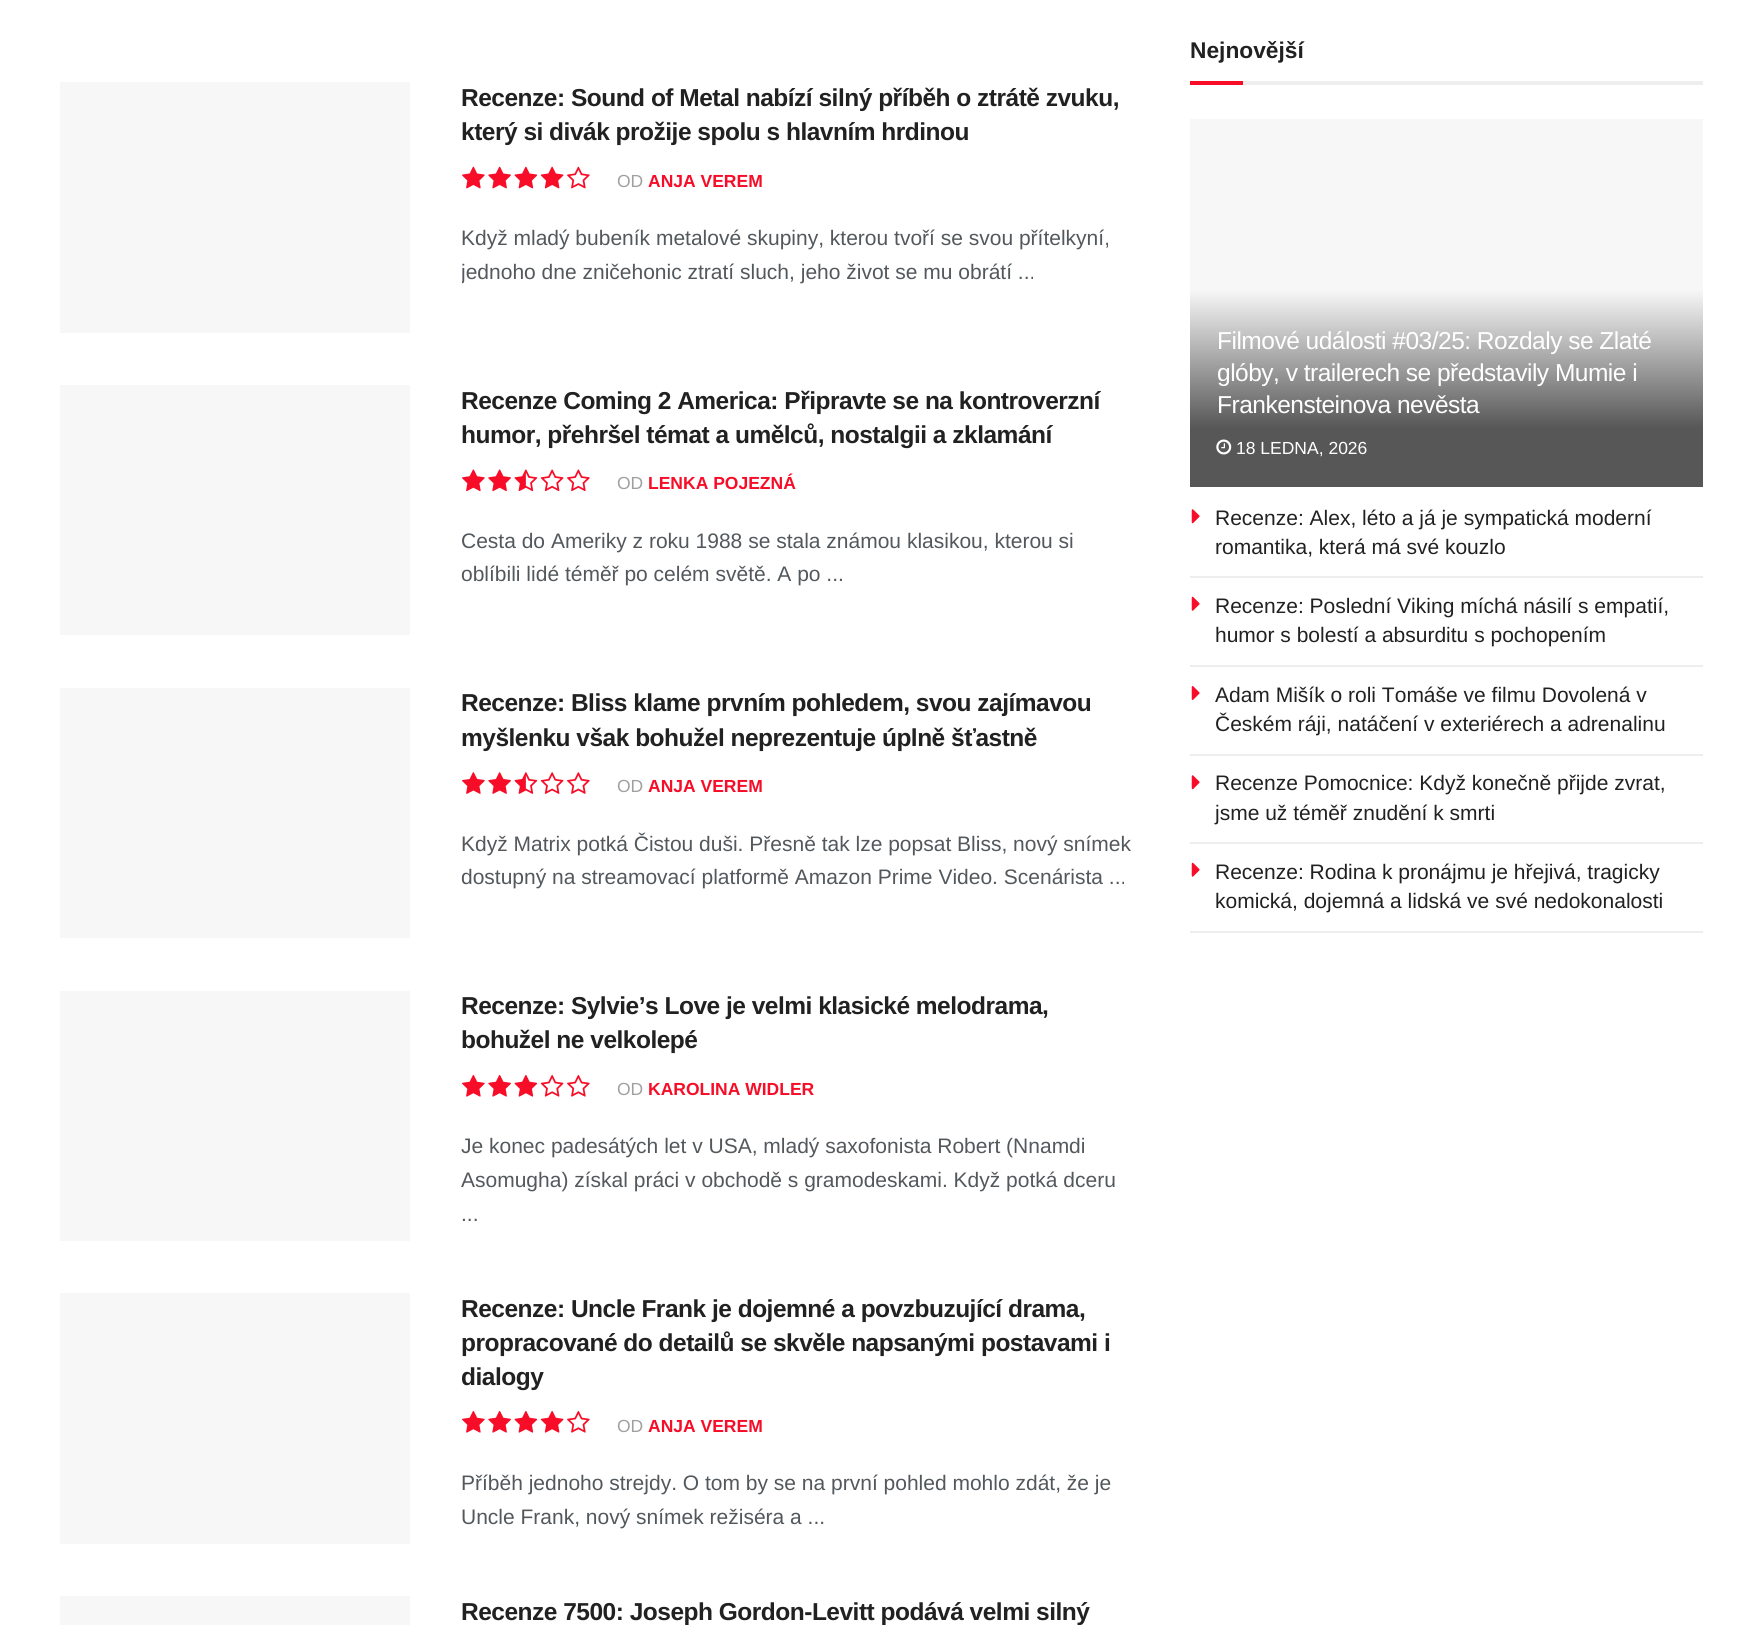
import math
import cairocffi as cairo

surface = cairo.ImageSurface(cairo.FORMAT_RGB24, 1761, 1625)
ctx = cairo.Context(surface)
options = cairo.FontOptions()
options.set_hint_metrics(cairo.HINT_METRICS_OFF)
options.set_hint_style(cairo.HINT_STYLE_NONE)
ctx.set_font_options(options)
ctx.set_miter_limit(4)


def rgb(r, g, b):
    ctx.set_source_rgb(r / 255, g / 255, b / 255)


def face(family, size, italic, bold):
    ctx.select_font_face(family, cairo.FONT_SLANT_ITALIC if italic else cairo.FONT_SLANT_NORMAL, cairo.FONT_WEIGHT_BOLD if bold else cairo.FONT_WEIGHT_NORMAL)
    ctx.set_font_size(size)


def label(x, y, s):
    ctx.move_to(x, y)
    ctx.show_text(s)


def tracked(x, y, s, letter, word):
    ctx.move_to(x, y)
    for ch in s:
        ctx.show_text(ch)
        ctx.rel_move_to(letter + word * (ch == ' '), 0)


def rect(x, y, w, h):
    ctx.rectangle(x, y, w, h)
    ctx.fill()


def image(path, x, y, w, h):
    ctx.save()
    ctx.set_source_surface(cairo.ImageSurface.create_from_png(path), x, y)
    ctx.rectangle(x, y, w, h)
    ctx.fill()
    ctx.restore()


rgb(255, 255, 255)
ctx.paint()
rgb(247, 247, 247)
rect(60, 82, 350, 251)
face('Liberation Sans', 24.5, 0, 1)
rgb(33, 33, 33)
tracked(461, 106, 'Recenze: Sound of Metal nabízí silný příběh o ztrátě zvuku,', -0.5, 0)
tracked(461, 140, 'který si divák prožije spolu s hlavním hrdinou', -0.5, 0)
image('image0.png', 462, 166, 23, 23)
image('image1.png', 488, 166, 23, 23)
image('image2.png', 514, 166, 24, 23)
image('image3.png', 540, 166, 24, 23)
image('image4.png', 567, 166, 23, 23)
face('Liberation Sans', 17.5, 0, 0)
rgb(160, 160, 160)
label(617, 187, 'OD')
face('Liberation Sans', 17.5, 0, 1)
rgb(247, 13, 40)
label(648, 187, 'ANJA VEREM')
face('Liberation Sans', 21, 0, 0)
rgb(83, 88, 92)
label(461, 245, 'Když mladý bubeník metalové skupiny, kterou tvoří se svou přítelkyní,')
ctx.save()
ctx.rectangle(462, 82, 676, 207)
ctx.clip()
label(461, 279, 'jednoho dne zničehonic ztratí sluch, jeho život se mu obrátí ...')
ctx.restore()
rgb(247, 247, 247)
rect(60, 385, 350, 250)
face('Liberation Sans', 24.5, 0, 1)
rgb(33, 33, 33)
tracked(461, 409, 'Recenze Coming 2 America: Připravte se na kontroverzní', -0.5, 0)
tracked(461, 443, 'humor, přehršel témat a umělců, nostalgii a zklamání', -0.5, 0)
image('image5.png', 462, 469, 23, 23)
image('image6.png', 488, 469, 23, 23)
image('image7.png', 514, 469, 24, 23)
image('image8.png', 540, 469, 24, 23)
image('image9.png', 567, 469, 23, 23)
face('Liberation Sans', 17.5, 0, 0)
rgb(160, 160, 160)
label(617, 489, 'OD')
face('Liberation Sans', 17.5, 0, 1)
rgb(247, 13, 40)
label(648, 489, 'LENKA POJEZNÁ')
face('Liberation Sans', 21, 0, 0)
rgb(83, 88, 92)
label(461, 548, 'Cesta do Ameriky z roku 1988 se stala známou klasikou, kterou si')
label(461, 581, 'oblíbili lidé téměř po celém světě. A po ...')
rgb(247, 247, 247)
rect(60, 688, 350, 250)
face('Liberation Sans', 24.5, 0, 1)
rgb(33, 33, 33)
tracked(461, 711, 'Recenze: Bliss klame prvním pohledem, svou zajímavou', -0.5, 0)
tracked(461, 746, 'myšlenku však bohužel neprezentuje úplně šťastně', -0.5, 0)
image('image10.png', 462, 772, 23, 22)
image('image11.png', 488, 772, 23, 22)
image('image12.png', 514, 772, 24, 22)
image('image13.png', 540, 772, 24, 22)
image('image14.png', 567, 772, 23, 22)
face('Liberation Sans', 17.5, 0, 0)
rgb(160, 160, 160)
label(617, 792, 'OD')
face('Liberation Sans', 17.5, 0, 1)
rgb(247, 13, 40)
label(648, 792, 'ANJA VEREM')
face('Liberation Sans', 21, 0, 0)
rgb(83, 88, 92)
label(461, 851, 'Když Matrix potká Čistou duši. Přesně tak lze popsat Bliss, nový snímek')
label(461, 884, 'dostupný na streamovací platformě Amazon Prime Video. Scenárista ...')
rgb(247, 247, 247)
rect(60, 991, 350, 250)
face('Liberation Sans', 24.5, 0, 1)
rgb(33, 33, 33)
tracked(461, 1014, 'Recenze: Sylvie’s Love je velmi klasické melodrama,', -0.5, 0)
tracked(461, 1048, 'bohužel ne velkolepé', -0.5, 0)
image('image15.png', 462, 1075, 23, 22)
image('image16.png', 488, 1075, 23, 22)
image('image17.png', 514, 1075, 24, 22)
image('image18.png', 540, 1075, 24, 22)
image('image19.png', 567, 1075, 23, 22)
face('Liberation Sans', 17.5, 0, 0)
rgb(160, 160, 160)
label(617, 1095, 'OD')
face('Liberation Sans', 17.5, 0, 1)
rgb(247, 13, 40)
label(648, 1095, 'KAROLINA WIDLER')
face('Liberation Sans', 21, 0, 0)
rgb(83, 88, 92)
label(461, 1153, 'Je konec padesátých let v USA, mladý saxofonista Robert (Nnamdi')
label(461, 1187, 'Asomugha) získal práci v obchodě s gramodeskami. Když potká dceru')
label(461, 1221, '...')
rgb(247, 247, 247)
rect(60, 1293, 350, 251)
face('Liberation Sans', 24.5, 0, 1)
rgb(33, 33, 33)
tracked(461, 1317, 'Recenze: Uncle Frank je dojemné a povzbuzující drama,', -0.5, 0)
tracked(461, 1351, 'propracované do detailů se skvěle napsanými postavami i', -0.5, 0)
tracked(461, 1385, 'dialogy', -0.5, 0)
image('image15.png', 462, 1411, 23, 22)
image('image16.png', 488, 1411, 23, 22)
image('image17.png', 514, 1411, 24, 22)
image('image20.png', 540, 1411, 24, 22)
image('image19.png', 567, 1411, 23, 22)
face('Liberation Sans', 17.5, 0, 0)
rgb(160, 160, 160)
label(617, 1432, 'OD')
face('Liberation Sans', 17.5, 0, 1)
rgb(247, 13, 40)
label(648, 1432, 'ANJA VEREM')
face('Liberation Sans', 21, 0, 0)
rgb(83, 88, 92)
label(461, 1490, 'Příběh jednoho strejdy. O tom by se na první pohled mohlo zdát, že je')
label(461, 1524, 'Uncle Frank, nový snímek režiséra a ...')
rgb(247, 247, 247)
rect(60, 1596, 350, 29)
face('Liberation Sans', 24.5, 0, 1)
rgb(33, 33, 33)
tracked(461, 1620, 'Recenze 7500: Joseph Gordon-Levitt podává velmi silný', -0.5, 0)
rgb(238, 238, 238)
rect(1243, 81, 460, 4)
face('Liberation Sans', 22.75, 0, 1)
rgb(33, 33, 33)
label(1190, 58, 'Nejnovější')
rgb(247, 13, 40)
rect(1190, 81, 53, 4)
rgb(247, 247, 247)
rect(1190, 119, 513, 172)
gradient = cairo.LinearGradient(1446, 290, 1446, 487)
gradient.add_color_stop_rgba(0, 0.969, 0.969, 0.969, 1)
gradient.add_color_stop_rgba(0.7, 0.341, 0.341, 0.341, 1)
ctx.set_source(gradient)
rect(1190, 291, 513, 196)
face('Liberation Sans', 24.5, 0, 0)
rgb(255, 255, 255)
tracked(1217, 349, 'Filmové události #03/25: Rozdaly se Zlaté', -0.5, 0)
tracked(1217, 381, 'glóby, v trailerech se představily Mumie i', -0.5, 0)
tracked(1217, 413, 'Frankensteinova nevěsta', -0.5, 0)
image('image21.png', 1216, 439, 16, 16)
face('Liberation Sans', 17.5, 0, 0)
label(1236, 454, '18 LEDNA, 2026')
rgb(238, 238, 238)
rect(1190, 576, 513, 2)
image('image22.png', 1191, 509, 9, 15)
face('Liberation Sans', 21, 0, 0)
rgb(33, 33, 33)
label(1215, 525, 'Recenze: Alex, léto a já je sympatická moderní')
label(1215, 554, 'romantika, která má své kouzlo')
rgb(238, 238, 238)
rect(1190, 665, 513, 2)
image('image23.png', 1191, 596, 9, 15)
rgb(33, 33, 33)
label(1215, 613, 'Recenze: Poslední Viking míchá násilí s empatií,')
label(1215, 642, 'humor s bolestí a absurditu s pochopením')
rgb(238, 238, 238)
rect(1190, 754, 513, 2)
image('image24.png', 1191, 686, 9, 14)
rgb(33, 33, 33)
label(1215, 702, 'Adam Mišík o roli Tomáše ve filmu Dovolená v')
label(1215, 731, 'Českém ráji, natáčení v exteriérech a adrenalinu')
rgb(238, 238, 238)
rect(1190, 842, 513, 2)
image('image22.png', 1191, 775, 9, 15)
rgb(33, 33, 33)
label(1215, 790, 'Recenze Pomocnice: Když konečně přijde zvrat,')
label(1215, 820, 'jsme už téměř znudění k smrti')
rgb(238, 238, 238)
rect(1190, 931, 513, 2)
image('image23.png', 1191, 862, 9, 15)
rgb(33, 33, 33)
label(1215, 879, 'Recenze: Rodina k pronájmu je hřejivá, tragicky')
label(1215, 908, 'komická, dojemná a lidská ve své nedokonalosti')
surface.write_to_png('render.png')
